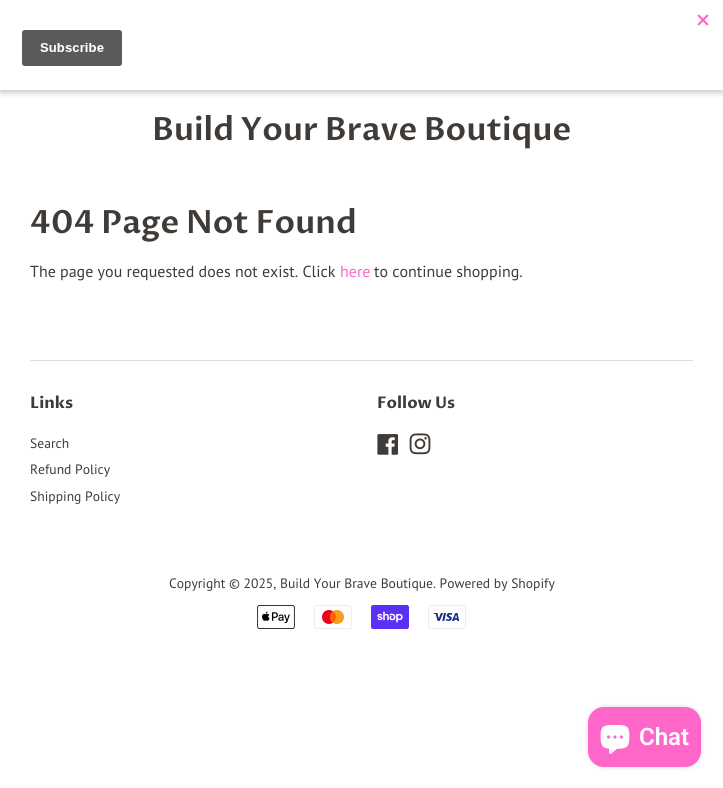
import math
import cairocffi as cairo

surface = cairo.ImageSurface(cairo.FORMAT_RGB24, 723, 788)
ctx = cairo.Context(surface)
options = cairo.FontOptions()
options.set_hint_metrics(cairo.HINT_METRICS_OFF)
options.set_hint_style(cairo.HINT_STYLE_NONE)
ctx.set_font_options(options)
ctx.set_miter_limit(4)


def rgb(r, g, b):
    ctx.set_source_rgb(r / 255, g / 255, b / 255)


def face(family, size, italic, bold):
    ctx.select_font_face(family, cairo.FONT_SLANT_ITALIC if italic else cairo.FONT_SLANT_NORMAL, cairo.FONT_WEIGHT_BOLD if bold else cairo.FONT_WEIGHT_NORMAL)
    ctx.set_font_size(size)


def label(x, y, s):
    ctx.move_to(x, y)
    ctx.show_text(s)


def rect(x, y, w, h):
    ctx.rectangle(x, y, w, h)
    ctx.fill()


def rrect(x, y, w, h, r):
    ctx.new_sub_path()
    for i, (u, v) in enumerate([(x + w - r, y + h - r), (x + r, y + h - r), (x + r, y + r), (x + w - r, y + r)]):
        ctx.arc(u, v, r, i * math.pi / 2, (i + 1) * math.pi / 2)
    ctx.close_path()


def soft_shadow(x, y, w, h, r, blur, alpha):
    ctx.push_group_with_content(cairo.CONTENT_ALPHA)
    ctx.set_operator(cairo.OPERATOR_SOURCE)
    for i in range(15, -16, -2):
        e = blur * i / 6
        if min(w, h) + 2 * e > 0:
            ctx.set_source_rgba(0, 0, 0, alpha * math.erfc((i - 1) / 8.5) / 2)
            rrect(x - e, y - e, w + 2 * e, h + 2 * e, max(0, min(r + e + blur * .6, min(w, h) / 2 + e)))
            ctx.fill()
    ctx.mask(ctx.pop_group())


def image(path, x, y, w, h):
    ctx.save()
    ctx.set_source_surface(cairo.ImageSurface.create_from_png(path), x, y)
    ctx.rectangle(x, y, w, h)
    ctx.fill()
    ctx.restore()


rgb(255, 255, 255)
ctx.paint()
rgb(0, 0, 0)
soft_shadow(0, 3, 723, 90, 0, 3, 0.2)
rgb(255, 255, 255)
rect(0, 0, 723, 90)
image('image0.png', 22, 14, 687, 52)
face('Proza Libre SemiBold', 32, 0, 0)
rgb(64, 59, 55)
label(152, 140, 'Build Your Brave Boutique')
label(30, 233, '404 Page Not Found')
face('PT Sans', 16, 0, 0)
label(30, 277, 'The page you requested does not exist. Click')
rgb(255, 102, 196)
label(340, 277, 'here')
rgb(64, 59, 55)
label(374, 277, 'to continue shopping.')
rgb(221, 221, 221)
rect(30, 360, 663, 1)
face('Proza Libre', 16, 0, 1)
rgb(64, 59, 55)
label(30, 408, 'Links')
face('PT Sans', 13.6, 0, 0)
label(30, 448, 'Search')
label(30, 474, 'Refund Policy')
label(30, 501, 'Shipping Policy')
face('Proza Libre', 16, 0, 1)
label(377, 408, 'Follow Us')
image('image1.png', 377, 434, 21, 21)
image('image2.png', 409, 433, 22, 22)
face('PT Sans', 13.6, 0, 0)
label(169, 588, 'Copyright © 2025, Build Your Brave Boutique. Powered by Shopify')
image('image3.png', 257, 605, 38, 24)
image('image4.png', 314, 605, 38, 24)
image('image5.png', 371, 605, 38, 24)
image('image6.png', 428, 605, 38, 24)
rgb(0, 0, 0)
soft_shadow(588, 707, 113, 60, 16, 2.5, 0.15)
rgb(255, 102, 202)
rrect(588, 707, 113, 60, 16)
ctx.fill()
image('image7.png', 600, 725, 30, 29)
face('Roboto SemiBold', 24, 0, 0)
rgb(255, 255, 255)
label(639, 745, 'Chat')
surface.write_to_png('render.png')
